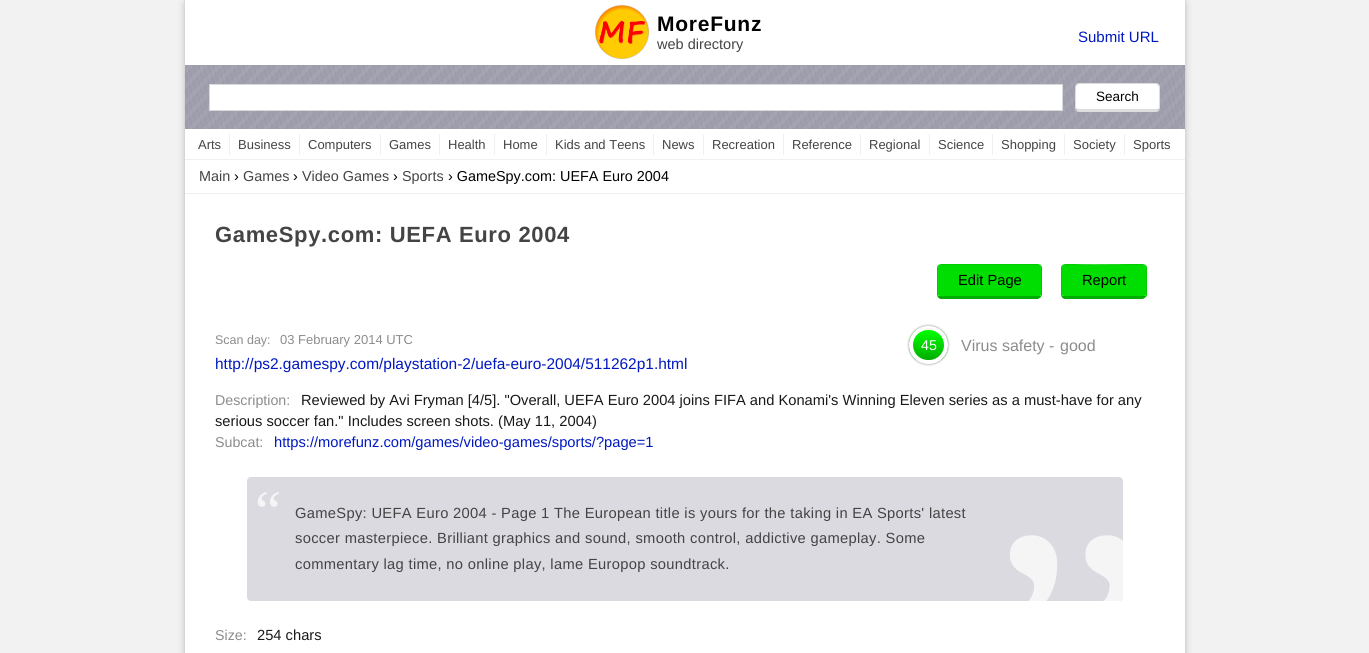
import math
import cairocffi as cairo

surface = cairo.ImageSurface(cairo.FORMAT_RGB24, 1369, 653)
ctx = cairo.Context(surface)
options = cairo.FontOptions()
options.set_hint_metrics(cairo.HINT_METRICS_OFF)
options.set_hint_style(cairo.HINT_STYLE_NONE)
ctx.set_font_options(options)
ctx.set_miter_limit(4)


def rgb(r, g, b):
    ctx.set_source_rgb(r / 255, g / 255, b / 255)


def face(family, size, italic, bold):
    ctx.select_font_face(family, cairo.FONT_SLANT_ITALIC if italic else cairo.FONT_SLANT_NORMAL, cairo.FONT_WEIGHT_BOLD if bold else cairo.FONT_WEIGHT_NORMAL)
    ctx.set_font_size(size)


def label(x, y, s):
    ctx.move_to(x, y)
    ctx.show_text(s)


def tracked(x, y, s, letter, word):
    ctx.move_to(x, y)
    for ch in s:
        ctx.show_text(ch)
        ctx.rel_move_to(letter + word * (ch == ' '), 0)


def rect(x, y, w, h):
    ctx.rectangle(x, y, w, h)
    ctx.fill()


def rrect(x, y, w, h, r):
    ctx.new_sub_path()
    for i, (u, v) in enumerate([(x + w - r, y + h - r), (x + r, y + h - r), (x + r, y + r), (x + w - r, y + r)]):
        ctx.arc(u, v, r, i * math.pi / 2, (i + 1) * math.pi / 2)
    ctx.close_path()


def soft_shadow(x, y, w, h, r, blur, alpha):
    ctx.push_group_with_content(cairo.CONTENT_ALPHA)
    ctx.set_operator(cairo.OPERATOR_SOURCE)
    for i in range(15, -16, -2):
        e = blur * i / 6
        if min(w, h) + 2 * e > 0:
            ctx.set_source_rgba(0, 0, 0, alpha * math.erfc((i - 1) / 8.5) / 2)
            rrect(x - e, y - e, w + 2 * e, h + 2 * e, max(0, min(r + e + blur * .6, min(w, h) / 2 + e)))
            ctx.fill()
    ctx.mask(ctx.pop_group())


def image(path, x, y, w, h):
    ctx.save()
    ctx.set_source_surface(cairo.ImageSurface.create_from_png(path), x, y)
    ctx.rectangle(x, y, w, h)
    ctx.fill()
    ctx.restore()


rgb(242, 242, 242)
ctx.paint()
rgb(0, 0, 0)
soft_shadow(188, 4, 994, 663, 0, 4.5, 0.52)
rgb(255, 255, 255)
rect(185, 0, 1000, 653)
rgb(217, 217, 217)
rect(1185, 0, 1, 8)
rect(184, 0, 1, 8)
image('image0.png', 595, 5, 55, 55)
face('Liberation Sans', 21, 0, 1)
rgb(0, 0, 0)
tracked(657, 31, 'MoreFunz', 0.75, 0)
face('Liberation Sans', 14.5, 0, 0)
rgb(68, 68, 68)
label(657, 49, 'web directory')
face('Liberation Sans', 15, 0, 0)
rgb(0, 24, 192)
label(1078, 42, 'Submit URL')
rgb(160, 160, 175)
rect(185, 65, 1000, 64)
image('image1.png', 185, 65, 1000, 64)
rgb(255, 255, 255)
ctx.rectangle(209.5, 84.5, 853, 26)
ctx.fill_preserve()
rgb(217, 217, 217)
ctx.set_line_width(1)
ctx.stroke()
rgb(255, 255, 255)
ctx.new_path()
ctx.move_to(1079, 84)
ctx.line_to(1156, 84)
ctx.curve_to(1158, 84, 1159, 85, 1159, 87)
ctx.line_to(1159, 108)
ctx.curve_to(1159, 109, 1158, 109, 1156, 109)
ctx.line_to(1079, 109)
ctx.curve_to(1077, 109, 1076, 109, 1076, 108)
ctx.line_to(1076, 87)
ctx.curve_to(1076, 85, 1077, 84, 1079, 84)
ctx.close_path()
ctx.fill()
rrect(1075.5, 83.5, 84, 28, 3.5)
rgb(221, 221, 221)
ctx.stroke()
rect(1077, 109, 81, 2)
face('Liberation Sans', 13.5, 0, 0)
rgb(0, 0, 0)
label(1096, 101, 'Search')
rgb(240, 240, 240)
rect(185, 159, 1000, 1)
rect(229, 134, 1, 21)
face('Liberation Sans', 13, 0, 0)
rgb(68, 68, 68)
label(198, 149, 'Arts')
rgb(240, 240, 240)
rect(299, 134, 1, 21)
rgb(68, 68, 68)
label(238, 149, 'Business')
rgb(240, 240, 240)
rect(380, 134, 1, 21)
rgb(68, 68, 68)
label(308, 149, 'Computers')
rgb(240, 240, 240)
rect(439, 134, 1, 21)
rgb(68, 68, 68)
label(389, 149, 'Games')
rgb(240, 240, 240)
rect(494, 134, 1, 21)
rgb(68, 68, 68)
label(448, 149, 'Health')
rgb(240, 240, 240)
rect(546, 134, 1, 21)
rgb(68, 68, 68)
label(503, 149, 'Home')
rgb(240, 240, 240)
rect(653, 134, 1, 21)
rgb(68, 68, 68)
label(555, 149, 'Kids and Teens')
rgb(240, 240, 240)
rect(703, 134, 1, 21)
rgb(68, 68, 68)
label(662, 149, 'News')
rgb(240, 240, 240)
rect(783, 134, 1, 21)
rgb(68, 68, 68)
label(712, 149, 'Recreation')
rgb(240, 240, 240)
rect(860, 134, 1, 21)
rgb(68, 68, 68)
label(792, 149, 'Reference')
rgb(240, 240, 240)
rect(929, 134, 1, 21)
rgb(68, 68, 68)
label(869, 149, 'Regional')
rgb(240, 240, 240)
rect(992, 134, 1, 21)
rgb(68, 68, 68)
label(938, 149, 'Science')
rgb(240, 240, 240)
rect(1064, 134, 1, 21)
rgb(68, 68, 68)
label(1001, 149, 'Shopping')
rgb(240, 240, 240)
rect(1124, 134, 1, 21)
rgb(68, 68, 68)
label(1073, 149, 'Society')
label(1133, 149, 'Sports')
rgb(240, 240, 240)
rect(185, 193, 1000, 1)
face('Liberation Sans', 14.4, 0, 0)
rgb(68, 68, 68)
label(199, 181, 'Main')
rgb(0, 0, 0)
label(234, 181, '›')
rgb(68, 68, 68)
label(243, 181, 'Games')
rgb(0, 0, 0)
label(293, 181, '›')
rgb(68, 68, 68)
label(302, 181, 'Video Games')
rgb(0, 0, 0)
label(393, 181, '›')
rgb(68, 68, 68)
label(402, 181, 'Sports')
rgb(0, 0, 0)
label(448, 181, '› GameSpy.com: UEFA Euro 2004')
face('Liberation Sans', 22, 0, 1)
rgb(68, 68, 68)
tracked(215, 242, 'GameSpy.com: UEFA Euro 2004', 0.65, 0)
rgb(0, 221, 0)
ctx.new_path()
ctx.move_to(941, 265)
ctx.line_to(1038, 265)
ctx.curve_to(1040, 265, 1041, 266, 1041, 268)
ctx.line_to(1041, 295)
ctx.curve_to(1041, 296, 1040, 296, 1038, 296)
ctx.line_to(941, 296)
ctx.curve_to(939, 296, 938, 296, 938, 295)
ctx.line_to(938, 268)
ctx.curve_to(938, 266, 939, 265, 941, 265)
ctx.close_path()
ctx.fill()
rgb(0, 204, 0)
ctx.new_path()
ctx.move_to(941, 264)
ctx.line_to(938, 265)
ctx.line_to(939, 266)
ctx.line_to(941, 265)
ctx.line_to(1038, 265)
ctx.line_to(1040, 266)
ctx.line_to(1041, 265)
ctx.line_to(1038, 264)
ctx.close_path()
ctx.fill()
ctx.new_path()
ctx.move_to(1042, 295)
ctx.line_to(1042, 268)
ctx.curve_to(1042, 267, 1041.5, 266, 1041, 265)
ctx.line_to(1040, 266)
ctx.line_to(1041, 267.5)
ctx.line_to(1041, 295.5)
ctx.line_to(1041.5, 297)
ctx.close_path()
ctx.fill()
rgb(0, 172, 0)
ctx.new_path()
ctx.move_to(941, 299)
ctx.line_to(1038, 299)
ctx.line_to(1041, 297)
ctx.line_to(1041, 296)
ctx.line_to(1038, 296)
ctx.line_to(941, 296)
ctx.line_to(938, 296)
ctx.line_to(938, 297)
ctx.curve_to(938, 298, 940, 299, 941, 299)
ctx.close_path()
ctx.fill()
rgb(0, 204, 0)
ctx.new_path()
ctx.move_to(937, 268)
ctx.line_to(937, 295)
ctx.curve_to(937, 295.5, 937, 296.5, 937.5, 297)
ctx.line_to(938, 295.5)
ctx.line_to(938, 267.5)
ctx.line_to(939, 266)
ctx.line_to(938, 265)
ctx.curve_to(937.5, 266, 937, 267, 937, 268)
ctx.close_path()
ctx.fill()
face('Liberation Sans', 14.7, 0, 0)
rgb(0, 0, 0)
label(958, 285, 'Edit Page')
rgb(0, 221, 0)
ctx.new_path()
ctx.move_to(1065, 265)
ctx.line_to(1143, 265)
ctx.curve_to(1145, 265, 1146, 266, 1146, 268)
ctx.line_to(1146, 295)
ctx.curve_to(1146, 296, 1145, 296, 1143, 296)
ctx.line_to(1065, 296)
ctx.curve_to(1063, 296, 1062, 296, 1062, 295)
ctx.line_to(1062, 268)
ctx.curve_to(1062, 266, 1063, 265, 1065, 265)
ctx.close_path()
ctx.fill()
rgb(0, 204, 0)
ctx.new_path()
ctx.move_to(1065, 264)
ctx.line_to(1062, 265)
ctx.line_to(1063, 266)
ctx.curve_to(1065, 264, 1123, 265, 1130, 265)
ctx.line_to(1143, 265)
ctx.line_to(1145, 266)
ctx.line_to(1146, 265)
ctx.line_to(1143, 264)
ctx.close_path()
ctx.fill()
ctx.new_path()
ctx.move_to(1147, 295)
ctx.line_to(1147, 268)
ctx.curve_to(1147, 267, 1146.5, 266, 1146, 265)
ctx.line_to(1145, 266)
ctx.line_to(1146, 267.5)
ctx.line_to(1146, 295.5)
ctx.line_to(1146.5, 297)
ctx.close_path()
ctx.fill()
rgb(0, 172, 0)
ctx.new_path()
ctx.move_to(1065, 299)
ctx.line_to(1143, 299)
ctx.line_to(1146, 297)
ctx.line_to(1146, 296)
ctx.line_to(1143, 296)
ctx.line_to(1064, 296)
ctx.line_to(1062, 296)
ctx.line_to(1062, 297)
ctx.curve_to(1062, 298, 1064, 299, 1065, 299)
ctx.close_path()
ctx.fill()
rgb(0, 204, 0)
ctx.new_path()
ctx.move_to(1061, 268)
ctx.line_to(1061, 295)
ctx.curve_to(1061, 295.5, 1061, 296.5, 1061.5, 297)
ctx.line_to(1062, 295.5)
ctx.line_to(1062, 267.5)
ctx.line_to(1063, 266)
ctx.line_to(1062, 265)
ctx.curve_to(1061.5, 266, 1061, 267, 1061, 268)
ctx.close_path()
ctx.fill()
rgb(0, 0, 0)
label(1082, 285, 'Report')
face('Liberation Sans', 12.5, 0, 0)
rgb(140, 140, 140)
label(215, 344, 'Scan day:')
face('Liberation Sans', 13, 0, 0)
label(280, 344, '03 February 2014 UTC')
rgb(0, 0, 0)
soft_shadow(910, 327, 37, 36, 18, 1.5, 1)
ctx.save()
rrect(909, 326, 39, 38, 19)
ctx.clip()
gradient = cairo.LinearGradient(929, 360, 929, 330)
gradient.add_color_stop_rgba(0, 0, 0.675, 0, 1)
gradient.add_color_stop_rgba(1, 0, 1, 0, 1)
ctx.set_source(gradient)
rect(909, 330, 39, 30)
ctx.restore()
rrect(911, 328, 35, 34, 17)
rgb(255, 255, 255)
ctx.set_line_width(4)
ctx.stroke()
face('Liberation Sans', 14.25, 0, 0)
label(921, 350, '45')
face('Liberation Sans', 16, 0, 0)
rgb(140, 140, 140)
label(961, 351, 'Virus safety -')
label(1060, 351, 'good')
face('Liberation Sans', 15.45, 0, 0)
rgb(0, 24, 192)
label(215, 369, 'http://ps2.gamespy.com/playstation-2/uefa-euro-2004/511262p1.html')
face('Liberation Sans', 14.25, 0, 0)
rgb(140, 140, 140)
label(215, 405, 'Description:')
face('Liberation Sans', 14.7, 0, 0)
rgb(25, 25, 25)
label(301, 405, 'Reviewed by Avi Fryman [4/5]. "Overall, UEFA Euro 2004 joins FIFA and Konami\'s Winning Eleven series as a must-have for any')
label(215, 426, 'serious soccer fan." Includes screen shots. (May 11, 2004)')
face('Liberation Sans', 14.25, 0, 0)
rgb(140, 140, 140)
label(215, 447, 'Subcat:')
face('Liberation Sans', 14.7, 0, 0)
rgb(0, 24, 192)
label(274, 447, 'https://morefunz.com/games/video-games/sports/?page=1')
rgb(218, 218, 224)
rrect(247, 477, 876, 124, 4)
ctx.fill()
face('Liberation Serif', 59, 0, 0)
rgb(245, 245, 246)
tracked(255, 531, '“', 0.32, 0)
face('Liberation Sans', 14.7, 0, 0)
rgb(68, 68, 68)
tracked(295, 518, 'GameSpy: UEFA Euro 2004 - Page 1 The European title is yours for the taking in EA Sports\' latest', 0.32, 0)
tracked(295, 543, 'soccer masterpiece. Brilliant graphics and sound, smooth control, addictive gameplay. Some', 0.32, 0)
ctx.save()
rrect(247, 477, 876, 124, 4)
ctx.clip()
face('Liberation Serif', 368, 0, 0)
rgb(245, 245, 246)
tracked(987, 780, '”', 0.32, 0)
ctx.restore()
tracked(295, 569, 'commentary lag time, no online play, lame Europop soundtrack.', 0.32, 0)
face('Liberation Sans', 14.25, 0, 0)
rgb(140, 140, 140)
label(215, 640, 'Size:')
face('Liberation Sans', 14.7, 0, 0)
rgb(25, 25, 25)
label(257, 640, '254 chars')
surface.write_to_png('render.png')
